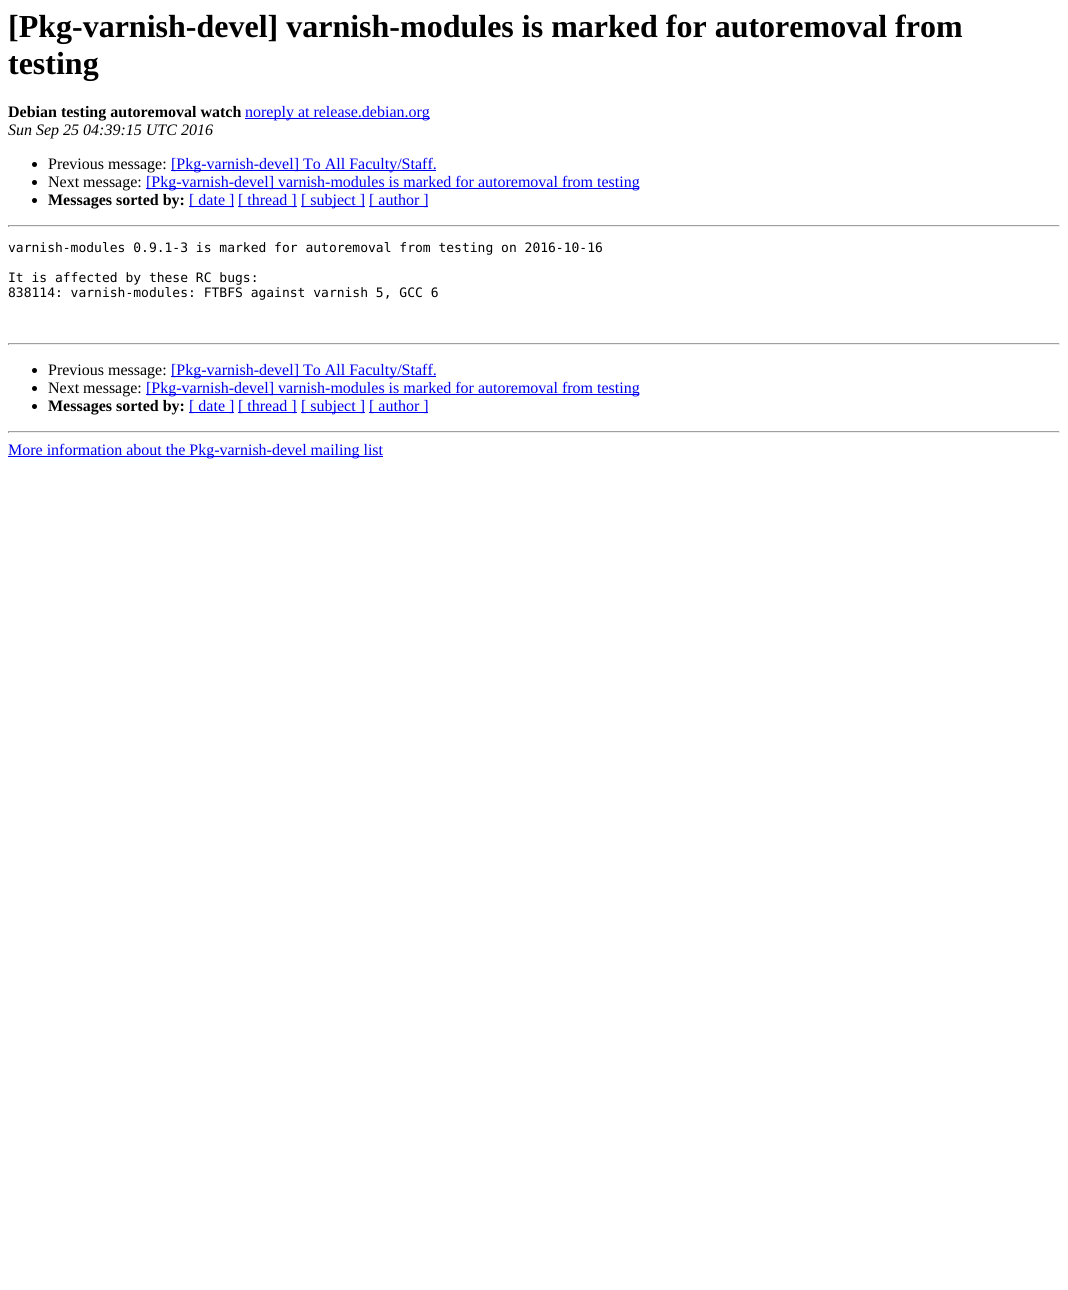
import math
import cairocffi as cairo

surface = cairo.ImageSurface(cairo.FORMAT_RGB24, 1068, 1290)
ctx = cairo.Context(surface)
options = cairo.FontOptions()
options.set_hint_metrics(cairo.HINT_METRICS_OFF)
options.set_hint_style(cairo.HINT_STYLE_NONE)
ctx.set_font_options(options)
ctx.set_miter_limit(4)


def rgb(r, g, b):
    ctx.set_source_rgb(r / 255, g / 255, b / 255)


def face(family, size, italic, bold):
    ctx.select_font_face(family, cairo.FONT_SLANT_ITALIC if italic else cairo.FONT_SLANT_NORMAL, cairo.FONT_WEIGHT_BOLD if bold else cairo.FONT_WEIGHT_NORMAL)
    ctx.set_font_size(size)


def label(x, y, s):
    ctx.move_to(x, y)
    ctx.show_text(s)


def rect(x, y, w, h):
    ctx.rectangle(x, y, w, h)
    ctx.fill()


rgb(255, 255, 255)
ctx.paint()
face('Liberation Serif', 32, 0, 1)
rgb(0, 0, 0)
label(8, 37, '[Pkg-varnish-devel] varnish-modules is marked for autoremoval from')
label(8, 74, 'testing')
face('Liberation Serif', 16, 0, 1)
label(8, 117, 'Debian testing autoremoval watch')
rgb(0, 0, 238)
rect(245, 118, 185, 1)
face('Liberation Serif', 16, 0, 0)
label(245, 117, 'noreply at release.debian.org')
face('Liberation Serif', 16, 1, 0)
rgb(0, 0, 0)
label(8, 135, 'Sun Sep 25 04:39:15 UTC 2016')
ctx.new_path()
ctx.arc(34.5, 164.5, 2.5, 0, 2 * math.pi)
ctx.fill()
face('Liberation Serif', 16, 0, 0)
label(48, 169, 'Previous message:')
rgb(0, 0, 238)
rect(171, 170, 265, 1)
label(171, 169, '[Pkg-varnish-devel] To All Faculty/Staff.')
rgb(0, 0, 0)
ctx.new_path()
ctx.arc(34.5, 182.5, 2.5, 0, 2 * math.pi)
ctx.fill()
label(48, 187, 'Next message:')
rgb(0, 0, 238)
rect(146, 188, 493, 1)
label(146, 187, '[Pkg-varnish-devel] varnish-modules is marked for autoremoval from testing')
rgb(0, 0, 0)
ctx.new_path()
ctx.arc(34.5, 200.5, 2.5, 0, 2 * math.pi)
ctx.fill()
face('Liberation Serif', 16, 0, 1)
label(48, 205, 'Messages sorted by:')
rgb(0, 0, 238)
rect(189, 206, 45, 1)
face('Liberation Serif', 16, 0, 0)
label(189, 205, '[ date ]')
rect(238, 206, 59, 1)
label(238, 205, '[ thread ]')
rect(301, 206, 64, 1)
label(301, 205, '[ subject ]')
rect(369, 206, 59, 1)
label(369, 205, '[ author ]')
rgb(159, 159, 159)
rect(8, 225, 1052, 1)
rgb(238, 238, 238)
rect(1059, 225, 1, 2)
rect(8, 226, 1052, 1)
rgb(159, 159, 159)
rect(8, 225, 1, 2)
face('DejaVu Sans Mono', 13, 0, 0)
rgb(0, 0, 0)
label(8, 252, 'varnish-modules 0.9.1-3 is marked for autoremoval from testing on 2016-10-16')
label(8, 282, 'It is affected by these RC bugs:')
label(8, 297, '838114: varnish-modules: FTBFS against varnish 5, GCC 6')
rgb(159, 159, 159)
rect(8, 343, 1052, 1)
rgb(238, 238, 238)
rect(1059, 343, 1, 2)
rect(8, 344, 1052, 1)
rgb(159, 159, 159)
rect(8, 343, 1, 2)
rgb(0, 0, 0)
ctx.new_path()
ctx.arc(34.5, 370.5, 2.5, 0, 2 * math.pi)
ctx.fill()
face('Liberation Serif', 16, 0, 0)
label(48, 375, 'Previous message:')
rgb(0, 0, 238)
rect(171, 376, 265, 1)
label(171, 375, '[Pkg-varnish-devel] To All Faculty/Staff.')
rgb(0, 0, 0)
ctx.new_path()
ctx.arc(34.5, 388.5, 2.5, 0, 2 * math.pi)
ctx.fill()
label(48, 393, 'Next message:')
rgb(0, 0, 238)
rect(146, 394, 493, 1)
label(146, 393, '[Pkg-varnish-devel] varnish-modules is marked for autoremoval from testing')
rgb(0, 0, 0)
ctx.new_path()
ctx.arc(34.5, 406.5, 2.5, 0, 2 * math.pi)
ctx.fill()
face('Liberation Serif', 16, 0, 1)
label(48, 411, 'Messages sorted by:')
rgb(0, 0, 238)
rect(189, 412, 45, 1)
face('Liberation Serif', 16, 0, 0)
label(189, 411, '[ date ]')
rect(238, 412, 59, 1)
label(238, 411, '[ thread ]')
rect(301, 412, 64, 1)
label(301, 411, '[ subject ]')
rect(369, 412, 59, 1)
label(369, 411, '[ author ]')
rgb(159, 159, 159)
rect(8, 431, 1052, 1)
rgb(238, 238, 238)
rect(1059, 431, 1, 2)
rect(8, 432, 1052, 1)
rgb(159, 159, 159)
rect(8, 431, 1, 2)
rgb(0, 0, 238)
rect(8, 456, 375, 1)
label(8, 455, 'More information about the Pkg-varnish-devel mailing list')
surface.write_to_png('render.png')
